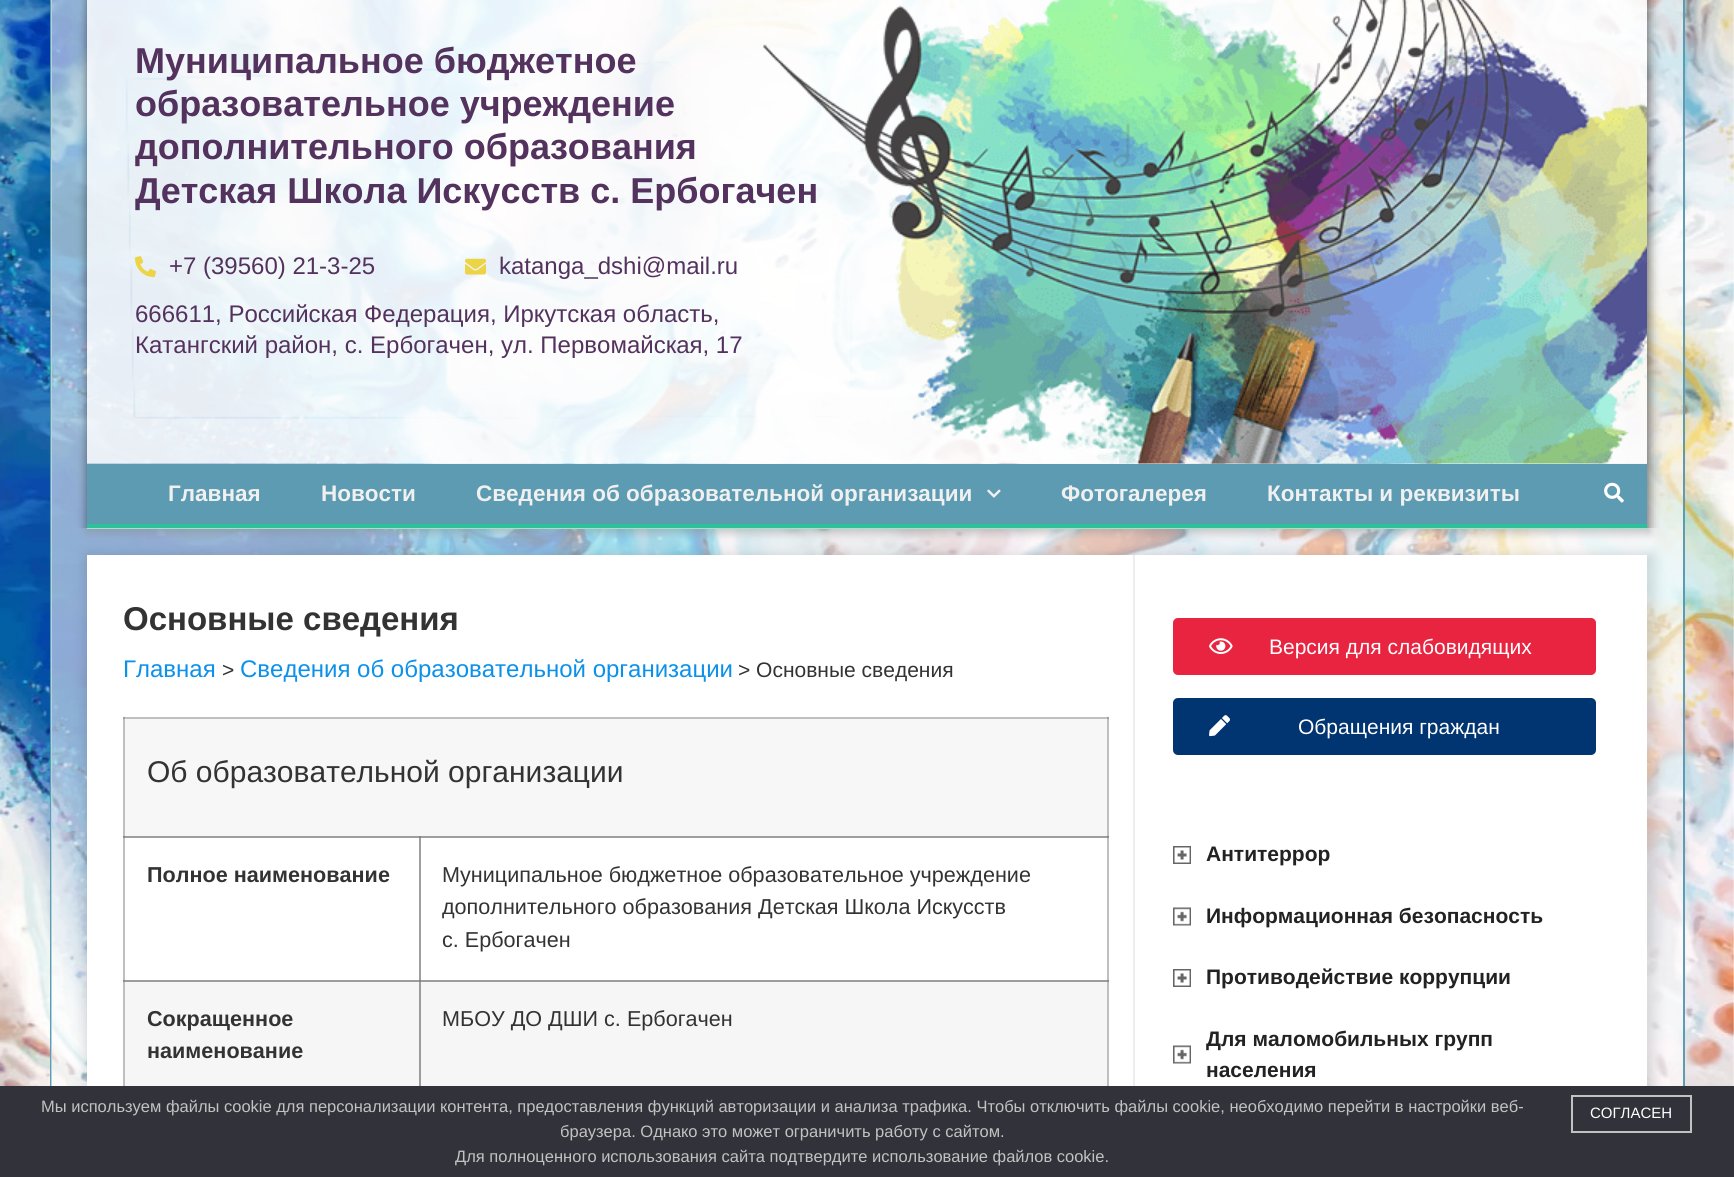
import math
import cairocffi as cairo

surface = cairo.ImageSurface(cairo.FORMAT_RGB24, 1734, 1177)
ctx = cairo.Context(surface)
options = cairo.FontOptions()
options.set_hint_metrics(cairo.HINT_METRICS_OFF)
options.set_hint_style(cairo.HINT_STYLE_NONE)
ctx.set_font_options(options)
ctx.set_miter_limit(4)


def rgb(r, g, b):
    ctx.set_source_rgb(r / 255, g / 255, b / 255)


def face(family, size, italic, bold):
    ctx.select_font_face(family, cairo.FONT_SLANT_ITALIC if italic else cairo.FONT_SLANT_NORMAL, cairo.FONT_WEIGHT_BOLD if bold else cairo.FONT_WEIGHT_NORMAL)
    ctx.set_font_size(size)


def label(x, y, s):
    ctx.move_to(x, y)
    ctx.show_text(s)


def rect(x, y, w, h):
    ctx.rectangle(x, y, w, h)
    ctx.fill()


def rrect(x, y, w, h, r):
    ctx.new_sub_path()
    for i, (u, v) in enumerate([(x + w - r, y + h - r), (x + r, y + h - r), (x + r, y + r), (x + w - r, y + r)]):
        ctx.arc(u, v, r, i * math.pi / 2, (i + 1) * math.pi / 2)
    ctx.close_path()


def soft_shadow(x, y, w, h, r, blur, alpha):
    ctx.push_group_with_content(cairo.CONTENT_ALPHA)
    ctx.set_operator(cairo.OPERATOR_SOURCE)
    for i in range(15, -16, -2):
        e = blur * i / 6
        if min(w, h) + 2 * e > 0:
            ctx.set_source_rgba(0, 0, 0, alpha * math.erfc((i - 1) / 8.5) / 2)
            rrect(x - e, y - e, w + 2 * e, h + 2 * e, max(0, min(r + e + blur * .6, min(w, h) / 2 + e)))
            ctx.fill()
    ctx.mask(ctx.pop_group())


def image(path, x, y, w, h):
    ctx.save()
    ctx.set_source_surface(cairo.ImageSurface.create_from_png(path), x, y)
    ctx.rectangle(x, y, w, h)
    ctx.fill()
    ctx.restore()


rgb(255, 255, 255)
ctx.paint()
image('image0.png', 0, 0, 1734, 1086)
rgb(92, 155, 178)
rect(1683, 0, 2, 1086)
rect(50, 0, 2, 1086)
ctx.set_source_rgba(1, 1, 1, 0.55)
rect(51, 0, 1632, 528)
ctx.save()
ctx.set_fill_rule(cairo.FILL_RULE_EVEN_ODD)
ctx.new_path()
ctx.move_to(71, 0)
ctx.line_to(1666, 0)
ctx.line_to(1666, 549)
ctx.line_to(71, 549)
ctx.close_path()
ctx.move_to(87, -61)
ctx.line_to(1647, -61)
ctx.line_to(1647, 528)
ctx.line_to(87, 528)
ctx.close_path()
ctx.clip()
rgb(0, 0, 0)
soft_shadow(87, -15, 1563, 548, 0, 5, 0.5)
ctx.restore()
image('image1.png', 87, 0, 1560, 464)
face('Liberation Sans', 36, 0, 1)
rgb(83, 50, 93)
label(135, 73, 'Муниципальное бюджетное')
label(135, 116, 'образовательное учреждение')
label(135, 159, 'дополнительного образования')
label(135, 203, 'Детская Школа Искусств с. Ербогачен')
image('image2.png', 135, 256, 21, 22)
face('Liberation Sans', 24, 0, 0)
label(169, 274, '+7 (39560) 21-3-25')
image('image3.png', 465, 258, 21, 17)
label(499, 274, 'katanga_dshi@mail.ru')
label(135, 322, '666611, Российская Федерация, Иркутская область,')
label(135, 353, 'Катангский район, с. Ербогачен, ул. Первомайская, 17')
rgb(92, 155, 178)
rect(87, 464, 1560, 60)
rgb(45, 192, 153)
rect(87, 524, 1560, 5)
face('Liberation Sans', 22.5, 0, 1)
rgb(240, 240, 240)
label(168, 501, 'Главная')
label(321, 501, 'Новости')
label(476, 501, 'Сведения об образовательной организации')
image('image4.png', 987, 489, 14, 9)
label(1061, 501, 'Фотогалерея')
label(1267, 501, 'Контакты и реквизиты')
image('image5.png', 1604, 482, 20, 21)
ctx.set_source_rgba(1, 1, 1, 0.55)
rect(51, 528, 1632, 558)
rgb(0, 0, 0)
soft_shadow(87, 555, 1566, 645, 0, 7.5, 0.15)
rgb(255, 255, 255)
rect(87, 555, 1560, 531)
face('Liberation Sans', 33, 0, 1)
rgb(51, 51, 51)
label(123, 630, 'Основные сведения')
face('Liberation Sans', 24, 0, 0)
rgb(11, 145, 234)
label(123, 677, 'Главная')
face('Liberation Sans', 21, 0, 0)
rgb(51, 51, 51)
label(222, 677, '>')
face('Liberation Sans', 24, 0, 0)
rgb(11, 145, 234)
label(240, 677, 'Сведения об образовательной организации')
face('Liberation Sans', 21, 0, 0)
rgb(51, 51, 51)
label(738, 677, '> Основные сведения')
rgb(247, 247, 247)
rect(125, 719, 982, 118)
rgb(192, 192, 192)
rect(123, 717, 986, 2)
ctx.set_source_rgba(0.502, 0.502, 0.502, 0.5)
rect(419, 836, 690, 2)
rgb(246, 246, 246)
rect(125, 980, 982, 106)
ctx.set_source_rgba(0.502, 0.502, 0.502, 0.5)
rect(419, 980, 690, 2)
rect(1107, 980, 2, 112)
rect(1107, 836, 2, 145)
rect(1107, 717, 2, 120)
rect(419, 980, 2, 112)
rect(123, 980, 297, 2)
rect(419, 980, 2, 112)
rect(419, 980, 690, 2)
rect(419, 836, 2, 145)
rect(123, 836, 297, 2)
rect(419, 836, 2, 145)
rect(123, 980, 2, 112)
rect(123, 980, 297, 2)
rect(123, 836, 2, 145)
rect(123, 836, 986, 2)
rect(123, 717, 2, 120)
face('Liberation Sans', 30, 0, 0)
rgb(51, 51, 51)
label(147, 782, 'Об образовательной организации')
face('Liberation Sans', 21.6, 0, 1)
label(147, 882, 'Полное наименование')
face('Liberation Sans', 21.6, 0, 0)
label(442, 882, 'Муниципальное бюджетное образовательное учреждение')
label(442, 914, 'дополнительного образования Детская Школа Искусств')
label(442, 947, 'с. Ербогачен')
face('Liberation Sans', 21.6, 0, 1)
label(147, 1026, 'Сокращенное')
label(147, 1058, 'наименование')
face('Liberation Sans', 21.6, 0, 0)
label(442, 1026, 'МБОУ ДО ДШИ с. Ербогачен')
rgb(238, 238, 238)
rect(1133, 555, 2, 531)
rgb(233, 36, 64)
rrect(1173, 618, 423, 57, 5)
ctx.fill()
image('image6.png', 1209, 638, 24, 16)
face('Liberation Sans', 21, 0, 0)
rgb(255, 255, 255)
label(1269, 654, 'Версия для слабовидящих')
rgb(1, 53, 113)
rrect(1173, 698, 423, 57, 5)
ctx.fill()
image('image7.png', 1209, 715, 21, 22)
rgb(255, 255, 255)
label(1298, 734, 'Обращения граждан')
image('image8.png', 1173, 846, 18, 18)
face('Liberation Sans', 21, 0, 1)
rgb(34, 34, 34)
label(1206, 861, 'Антитеррор')
image('image9.png', 1173, 907, 18, 19)
label(1206, 923, 'Информационная безопасность')
image('image8.png', 1173, 969, 18, 18)
label(1206, 984, 'Противодействие коррупции')
image('image9.png', 1173, 1045, 18, 19)
label(1206, 1046, 'Для маломобильных групп')
label(1206, 1077, 'населения')
rgb(50, 50, 58)
rect(0, 1086, 1734, 91)
face('Liberation Sans', 16.5, 0, 0)
rgb(194, 194, 194)
label(41, 1112, 'Мы используем файлы cookie для персонализации контента, предоставления функций авторизации и анализа трафика. Чтобы отключить файлы cookie, необходимо перейти в настройки веб-')
label(560, 1137, 'браузера. Однако это может ограничить работу с сайтом.')
label(455, 1162, 'Для полноценного использования сайта подтвердите использование файлов cookie.')
ctx.rectangle(1572, 1096, 119, 36)
ctx.stroke()
face('Liberation Sans', 15, 0, 0)
rgb(255, 255, 255)
label(1590, 1118, 'СОГЛАСЕН')
surface.write_to_png('render.png')
